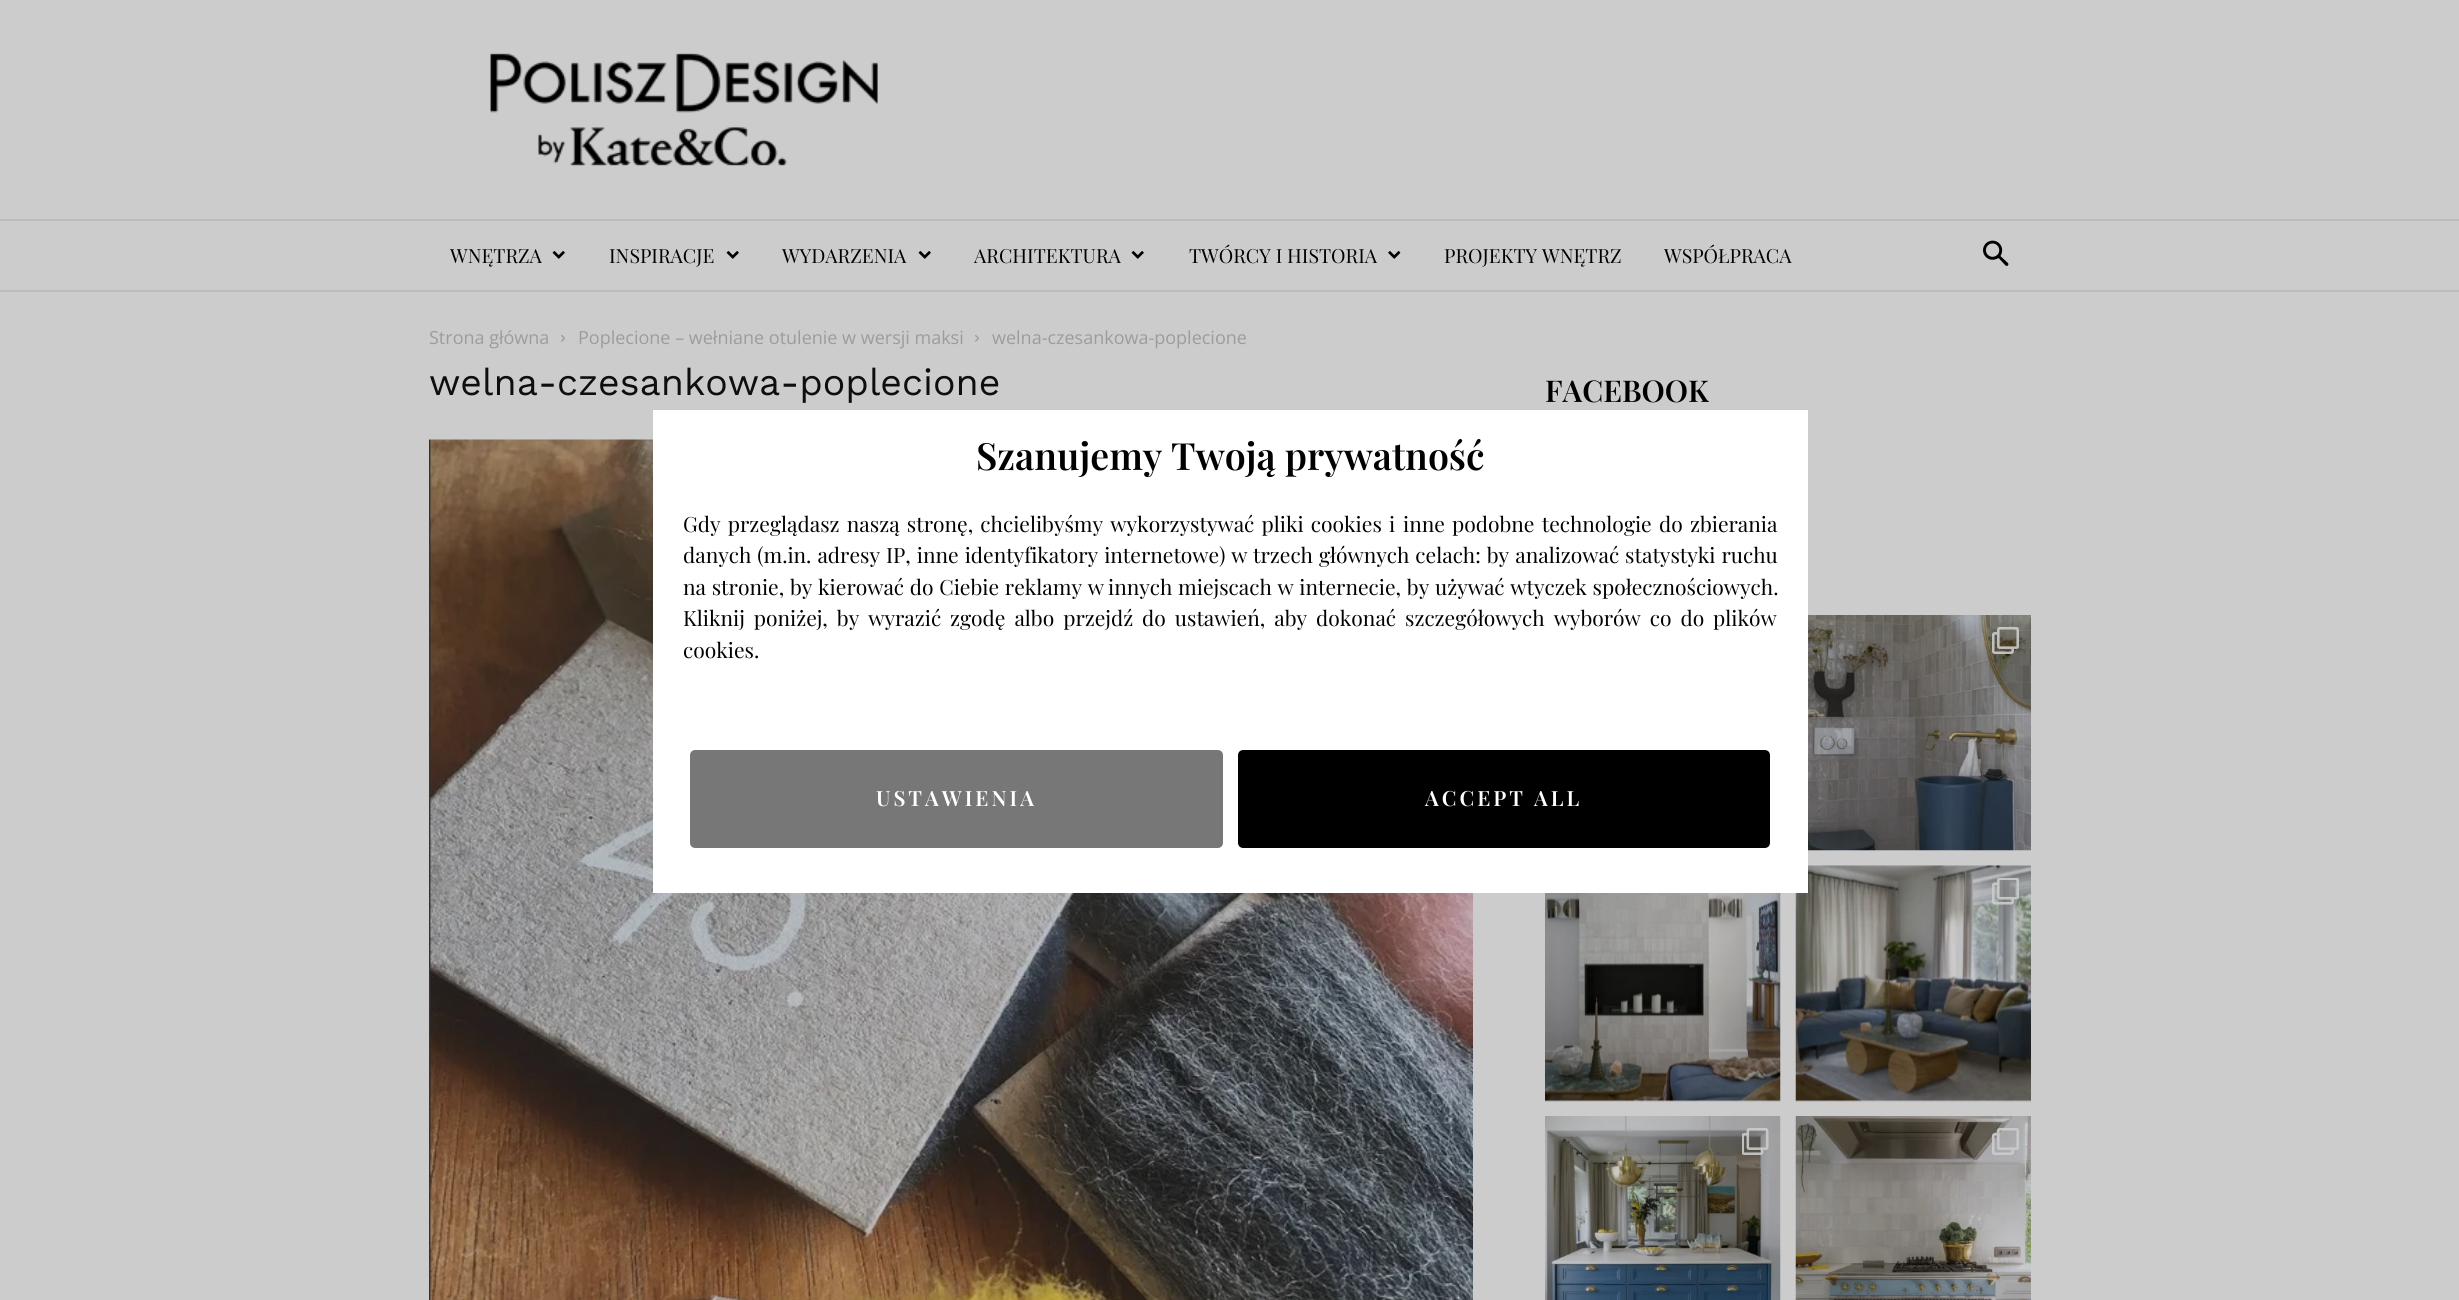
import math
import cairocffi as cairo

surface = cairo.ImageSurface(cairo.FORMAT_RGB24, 2459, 1300)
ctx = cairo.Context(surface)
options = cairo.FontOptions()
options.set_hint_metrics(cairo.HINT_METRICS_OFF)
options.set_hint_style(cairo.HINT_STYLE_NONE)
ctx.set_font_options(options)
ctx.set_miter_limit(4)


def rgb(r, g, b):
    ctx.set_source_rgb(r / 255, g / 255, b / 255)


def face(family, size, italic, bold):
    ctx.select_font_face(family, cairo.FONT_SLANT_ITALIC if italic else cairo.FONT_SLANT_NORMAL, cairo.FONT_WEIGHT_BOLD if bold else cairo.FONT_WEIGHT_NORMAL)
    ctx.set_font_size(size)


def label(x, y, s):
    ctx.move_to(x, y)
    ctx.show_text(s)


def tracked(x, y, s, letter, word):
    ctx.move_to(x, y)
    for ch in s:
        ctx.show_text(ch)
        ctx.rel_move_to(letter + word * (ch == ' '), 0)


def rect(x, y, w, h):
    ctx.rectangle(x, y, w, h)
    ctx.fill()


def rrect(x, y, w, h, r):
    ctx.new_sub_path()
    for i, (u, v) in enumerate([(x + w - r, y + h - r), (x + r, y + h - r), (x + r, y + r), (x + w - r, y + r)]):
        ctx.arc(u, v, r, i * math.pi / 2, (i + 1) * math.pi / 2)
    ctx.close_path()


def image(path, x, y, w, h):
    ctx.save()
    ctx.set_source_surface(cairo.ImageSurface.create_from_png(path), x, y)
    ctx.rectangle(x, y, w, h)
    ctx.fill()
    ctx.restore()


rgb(204, 204, 204)
ctx.paint()
image('image0.png', 490, 53, 388, 113)
rgb(188, 188, 188)
rect(0, 219, 2459, 2)
face('Playfair Display', 19.5, 0, 0)
rgb(0, 0, 0)
label(450, 263, 'WNĘTRZA')
image('image1.png', 552, 251, 13, 8)
label(609, 263, 'INSPIRACJE')
image('image1.png', 726, 251, 13, 8)
label(782, 263, 'WYDARZENIA')
image('image1.png', 918, 251, 13, 8)
label(974, 263, 'ARCHITEKTURA')
image('image1.png', 1131, 251, 13, 8)
label(1189, 263, 'TWÓRCY I HISTORIA')
image('image2.png', 1388, 251, 13, 8)
label(1444, 263, 'PROJEKTY WNĘTRZ')
label(1664, 263, 'WSPÓŁPRACA')
image('image3.png', 1983, 240, 26, 26)
rgb(188, 188, 188)
rect(0, 290, 2459, 2)
face('Open Sans', 18, 0, 0)
rgb(156, 156, 156)
label(429, 344, 'Strona główna')
image('image4.png', 561, 335, 4, 7)
label(578, 344, 'Poplecione – wełniane otulenie w wersji maksi')
image('image4.png', 975, 335, 4, 7)
label(992, 344, 'welna-czesankowa-poplecione')
face('Work Sans', 37.5, 0, 0)
rgb(14, 14, 14)
label(429, 395, 'welna-czesankowa-poplecione')
image('image5.png', 429, 439, 1044, 861)
face('Playfair Display SemiBold', 30, 0, 0)
rgb(0, 0, 0)
label(1545, 402, 'FACEBOOK')
image('image6.png', 1808, 615, 223, 236)
image('image7.png', 1992, 627, 27, 27)
image('image8.png', 1545, 893, 236, 209)
image('image9.png', 1795, 865, 236, 237)
image('image10.png', 1992, 878, 27, 27)
image('image11.png', 1545, 1116, 236, 184)
image('image12.png', 1742, 1128, 27, 27)
image('image13.png', 1795, 1116, 236, 184)
image('image14.png', 1992, 1128, 27, 27)
rgb(255, 255, 255)
rect(653, 410, 1155, 483)
face('Playfair Display SemiBold', 37.5, 0, 0)
rgb(0, 0, 0)
label(976, 470, 'Szanujemy Twoją prywatność')
face('Playfair Display', 21, 0, 0)
tracked(683, 532, 'Gdy przeglądasz naszą stronę, chcielibyśmy wykorzystywać pliki cookies i', 0, 2)
tracked(1403, 532, 'inne podobne technologie do zbierania', 0, 2)
tracked(683, 563, 'danych (m.in. adresy IP, inne identyfikatory internetowe) w', 0, 0.75)
tracked(1253, 563, 'trzech głównych celach: by analizować statystyki ruchu', 0, 0.75)
tracked(683, 595, 'na stronie, by kierować do Ciebie reklamy w', 0, 0.5)
tracked(1108, 595, 'innych miejscach w internecie, by używać wtyczek społecznościowych.', 0, 0.5)
tracked(683, 626, 'Kliknij poniżej, by wyrazić', 0, 3.75)
tracked(950, 626, 'zgodę albo przejdź do ustawień, aby dokonać szczegółowych wyborów co do plików', 0, 3.75)
label(683, 658, 'cookies.')
rgb(119, 119, 119)
rrect(691.5, 751.5, 530, 95, 3.5)
ctx.fill_preserve()
ctx.set_line_width(3)
ctx.stroke()
face('Playfair Display SemiBold', 21, 0, 0)
rgb(255, 255, 255)
tracked(876, 806, 'USTAWIENIA', 3, 0)
rgb(0, 0, 0)
rrect(1239.5, 751.5, 529, 95, 3.5)
ctx.fill_preserve()
ctx.stroke()
rgb(255, 255, 255)
tracked(1425, 806, 'ACCEPT ALL', 3, 0)
surface.write_to_png('render.png')
